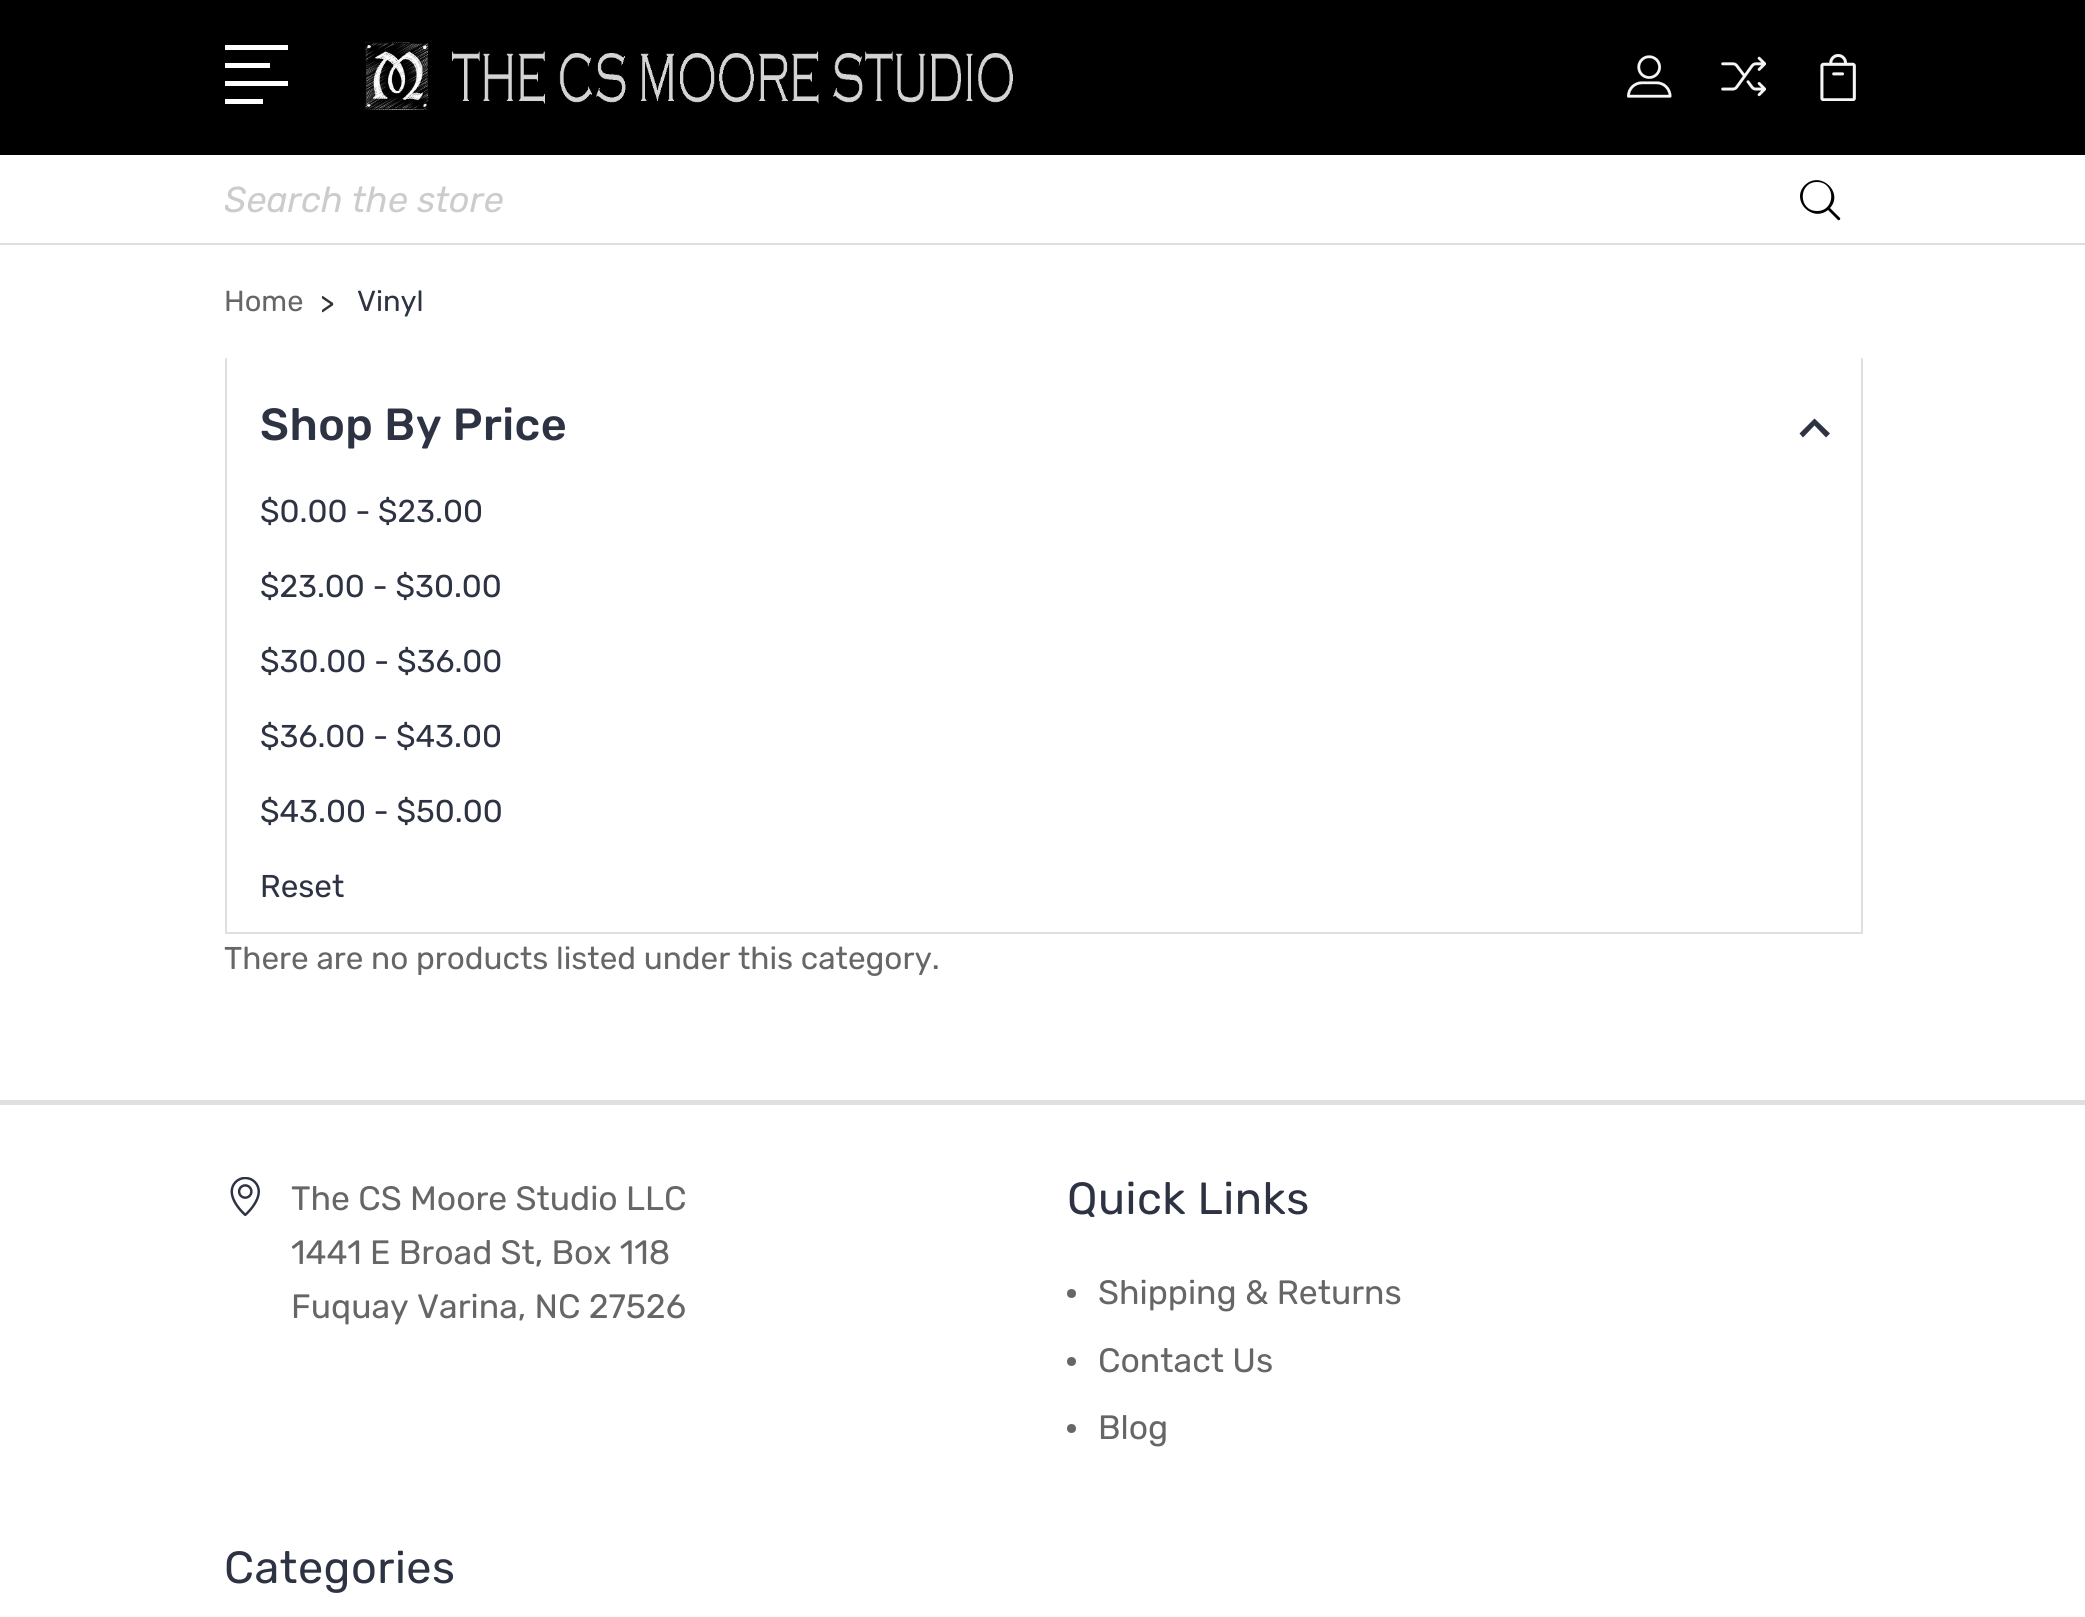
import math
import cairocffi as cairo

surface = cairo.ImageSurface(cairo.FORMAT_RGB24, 2085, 1617)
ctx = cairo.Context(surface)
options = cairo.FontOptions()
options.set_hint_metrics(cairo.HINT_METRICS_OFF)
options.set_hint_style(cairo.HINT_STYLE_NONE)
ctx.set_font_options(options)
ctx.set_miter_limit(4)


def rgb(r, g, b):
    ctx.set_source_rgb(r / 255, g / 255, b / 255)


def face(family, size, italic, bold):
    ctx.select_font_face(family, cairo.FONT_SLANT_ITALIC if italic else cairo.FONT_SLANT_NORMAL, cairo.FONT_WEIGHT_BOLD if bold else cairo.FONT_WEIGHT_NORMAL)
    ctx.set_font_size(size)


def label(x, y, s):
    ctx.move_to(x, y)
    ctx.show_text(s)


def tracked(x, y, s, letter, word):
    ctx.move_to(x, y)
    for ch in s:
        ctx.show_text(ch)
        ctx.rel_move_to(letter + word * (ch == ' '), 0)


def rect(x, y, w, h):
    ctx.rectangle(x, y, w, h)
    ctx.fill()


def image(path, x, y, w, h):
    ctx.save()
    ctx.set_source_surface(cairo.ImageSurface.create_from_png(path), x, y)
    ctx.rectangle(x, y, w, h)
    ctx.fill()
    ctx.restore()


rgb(255, 255, 255)
ctx.paint()
rgb(0, 0, 0)
rect(0, 0, 2085, 155)
rgb(255, 255, 255)
rect(225, 45, 63, 5)
rect(225, 63, 45, 5)
rect(225, 81, 63, 5)
rect(225, 99, 38, 5)
image('image0.png', 364, 42, 649, 68)
image('image1.png', 1627, 55, 45, 43)
image('image2.png', 1721, 56, 45, 41)
image('image3.png', 1820, 54, 36, 47)
rgb(223, 223, 223)
rect(0, 243, 2085, 2)
ctx.save()
ctx.rectangle(225, 178, 1571, 43)
ctx.clip()
face('Rubik', 36, 1, 0)
rgb(204, 204, 204)
label(224, 212, 'Search the store')
ctx.restore()
rgb(0, 0, 0)
ctx.new_path()
ctx.move_to(1817, 211)
ctx.curve_to(1798, 211, 1798, 182, 1817, 182)
ctx.curve_to(1836, 182, 1836, 211, 1817, 211)
ctx.close_path()
ctx.move_to(1840, 218)
ctx.line_to(1830, 208)
ctx.curve_to(1844, 193, 1821, 170, 1805, 185)
ctx.curve_to(1790, 200, 1812, 223, 1828, 210)
ctx.line_to(1838, 220)
ctx.curve_to(1839, 221, 1841, 219, 1840, 218)
ctx.close_path()
ctx.fill()
face('Rubik', 29, 0, 0)
rgb(102, 102, 102)
label(224, 311, 'Home')
rgb(51, 51, 51)
label(320, 313, '>')
rgb(46, 51, 68)
label(357, 311, 'Vinyl')
rgb(223, 223, 223)
rect(1861, 358, 2, 576)
rect(225, 932, 1638, 2)
rect(225, 358, 2, 576)
face('Rubik Medium', 45, 0, 0)
rgb(46, 51, 68)
tracked(260, 440, 'Shop By Price', 0.5, 0)
ctx.new_path()
ctx.move_to(1803, 437.5)
ctx.line_to(1814.5, 425.5)
ctx.line_to(1826, 437.5)
ctx.line_to(1830, 433.5)
ctx.line_to(1814.5, 418.5)
ctx.line_to(1799.5, 433.5)
ctx.close_path()
ctx.fill()
face('Rubik', 31.5, 0, 0)
label(260, 522, '$0.00 - $23.00')
label(260, 597, '$23.00 - $30.00')
label(260, 672, '$30.00 - $36.00')
label(260, 747, '$36.00 - $43.00')
label(260, 822, '$43.00 - $50.00')
label(260, 897, 'Reset')
rgb(102, 102, 102)
label(224, 969, 'There are no products listed under this category.')
rgb(223, 223, 223)
rect(0, 1100, 2085, 5)
image('image4.png', 230, 1177, 30, 40)
face('Rubik', 33.75, 0, 0)
rgb(102, 102, 102)
label(291, 1210, 'The CS Moore Studio LLC')
label(291, 1264, '1441 E Broad St, Box 118')
label(291, 1318, 'Fuquay Varina, NC 27526')
face('Rubik', 45, 0, 0)
rgb(46, 51, 68)
tracked(1067, 1214, 'Quick Links', 0.5, 0)
rgb(102, 102, 102)
ctx.new_path()
ctx.arc(1071.5, 1293.5, 4.5, 0, 2 * math.pi)
ctx.fill()
face('Rubik', 33.75, 0, 0)
label(1098, 1304, 'Shipping & Returns')
ctx.new_path()
ctx.arc(1071.5, 1361.5, 4.5, 0, 2 * math.pi)
ctx.fill()
label(1098, 1372, 'Contact Us')
ctx.new_path()
ctx.arc(1071.5, 1428.5, 4.5, 0, 2 * math.pi)
ctx.fill()
label(1098, 1439, 'Blog')
face('Rubik', 45, 0, 0)
rgb(46, 51, 68)
tracked(224, 1583, 'Categories', 0.5, 0)
surface.write_to_png('render.png')
